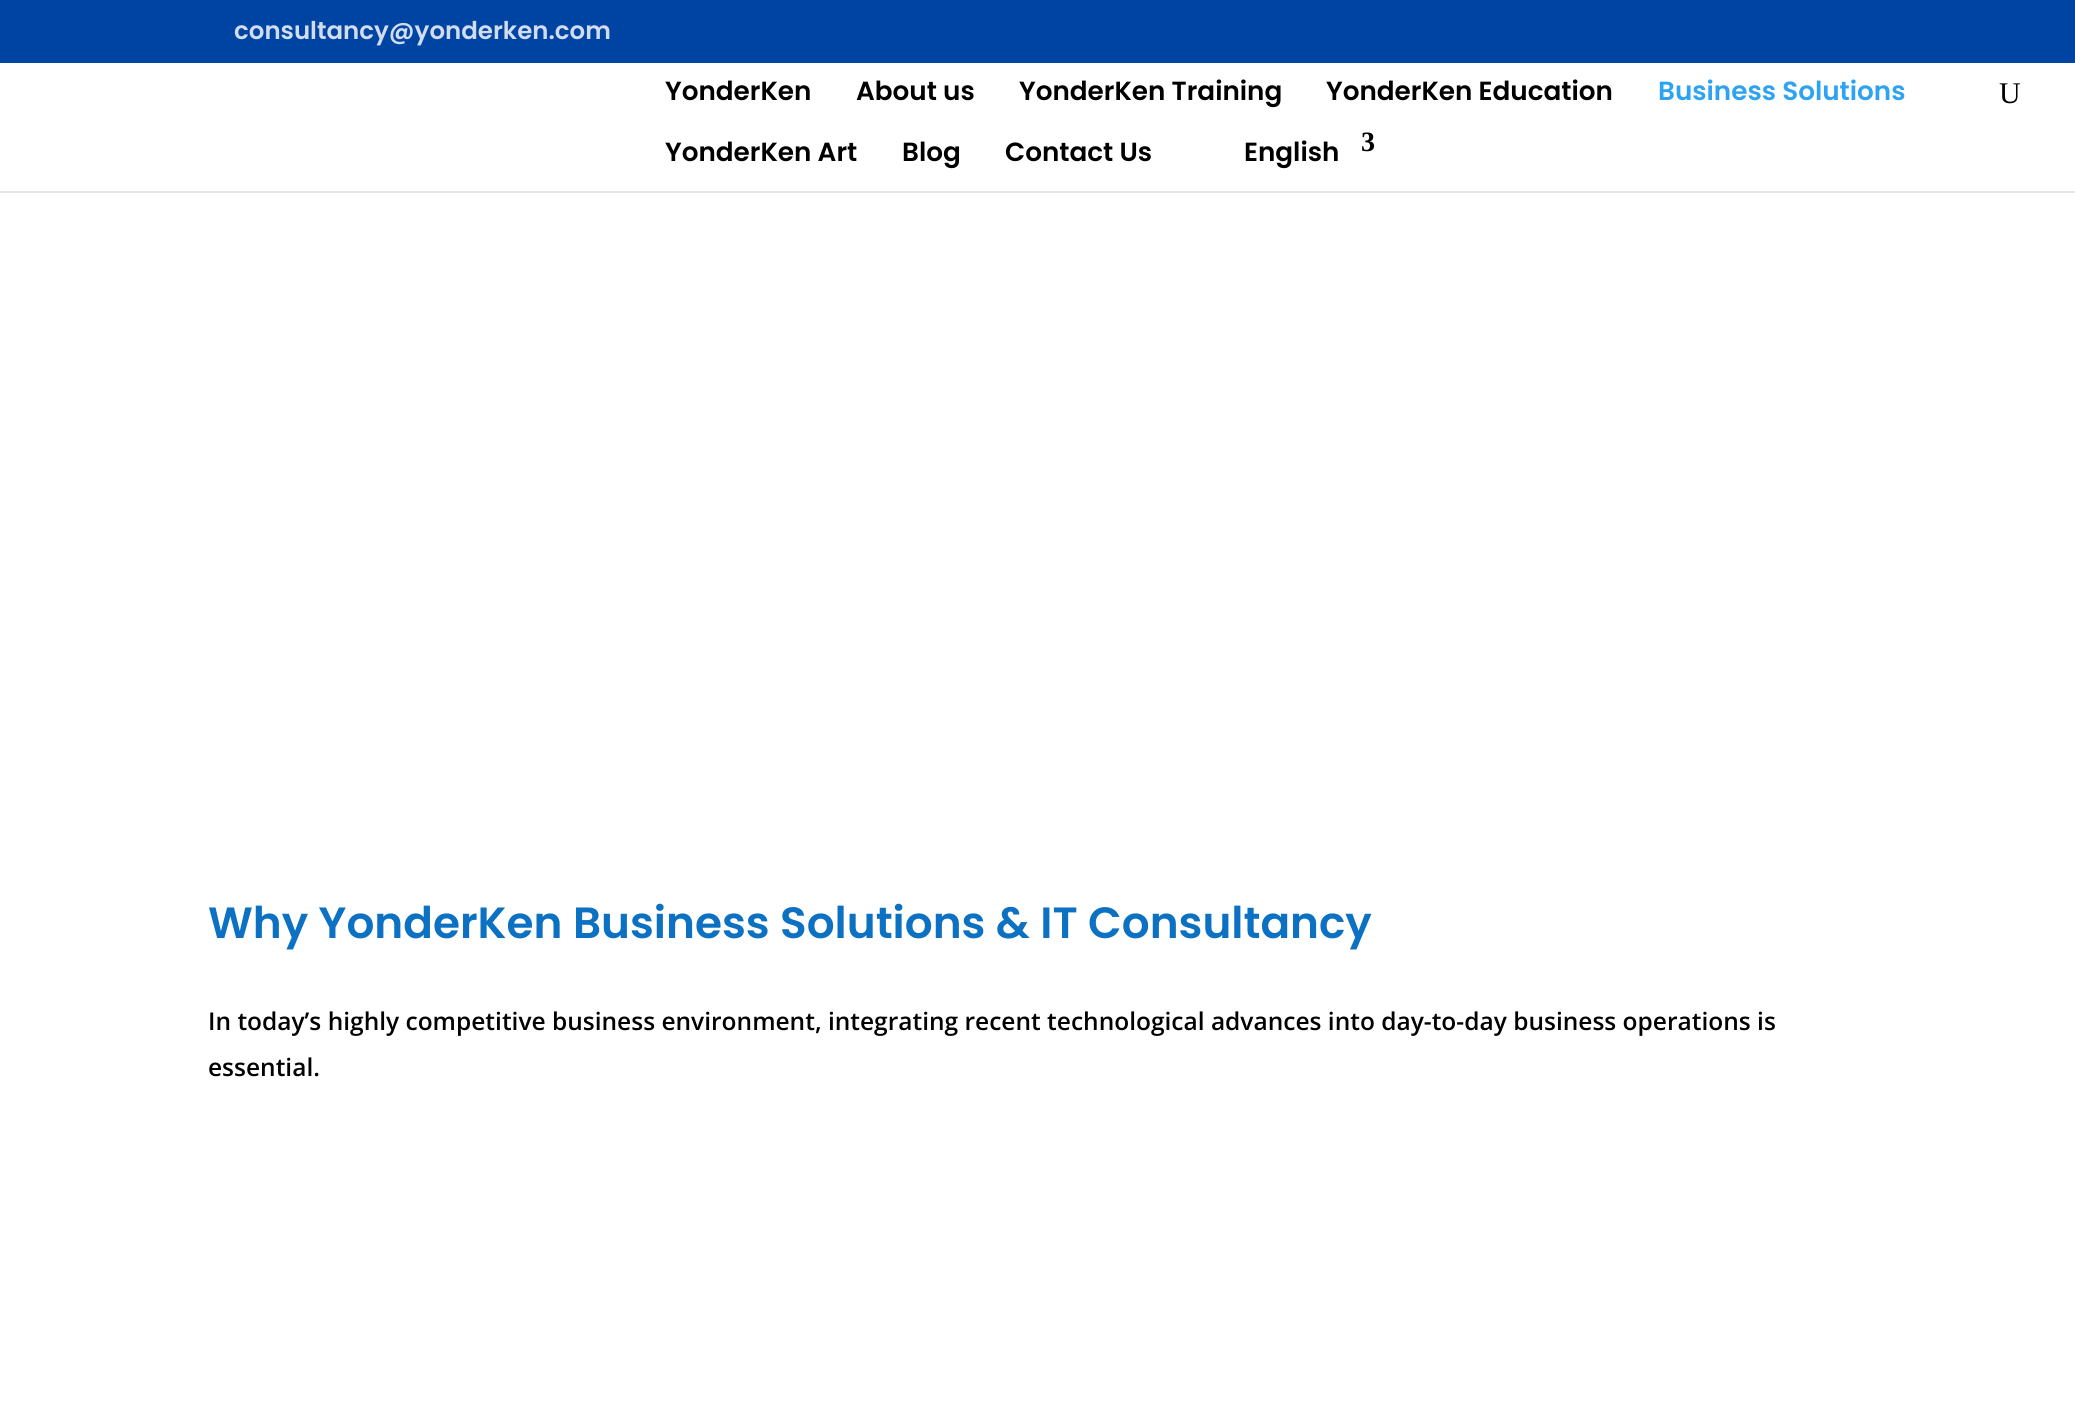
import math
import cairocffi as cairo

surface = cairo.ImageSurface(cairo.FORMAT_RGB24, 2075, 1419)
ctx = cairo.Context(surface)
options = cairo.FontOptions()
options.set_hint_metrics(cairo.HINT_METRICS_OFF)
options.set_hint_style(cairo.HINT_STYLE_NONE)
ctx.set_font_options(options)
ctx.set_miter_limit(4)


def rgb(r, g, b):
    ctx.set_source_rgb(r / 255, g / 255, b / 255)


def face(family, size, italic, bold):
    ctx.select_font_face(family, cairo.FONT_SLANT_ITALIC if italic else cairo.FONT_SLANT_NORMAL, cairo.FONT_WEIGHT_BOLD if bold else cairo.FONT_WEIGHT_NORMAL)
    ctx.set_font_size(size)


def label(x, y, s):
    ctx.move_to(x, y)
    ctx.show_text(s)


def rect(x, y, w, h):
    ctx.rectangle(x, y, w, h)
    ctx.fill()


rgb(255, 255, 255)
ctx.paint()
rgb(0, 68, 163)
rect(0, 0, 2075, 63)
face('Poppins SemiBold', 24.5, 0, 0)
rgb(209, 221, 238)
label(234, 39, 'consultancy@yonderken.com')
rgb(230, 230, 230)
ctx.new_path()
ctx.move_to(0, 191)
ctx.line_to(0, 193)
ctx.line_to(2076, 193)
ctx.line_to(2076, 54)
ctx.line_to(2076, 191)
ctx.close_path()
ctx.fill()
face('Poppins SemiBold', 26.25, 0, 0)
rgb(0, 0, 0)
label(665, 100, 'YonderKen')
label(856, 100, 'About us')
label(1019, 100, 'YonderKen Training')
label(1326, 100, 'YonderKen Education')
rgb(46, 163, 242)
label(1658, 100, 'Business Solutions')
rgb(0, 0, 0)
label(665, 161, 'YonderKen Art')
label(902, 161, 'Blog')
label(1005, 161, 'Contact Us')
label(1244, 161, 'English')
face('Liberation Serif', 28, 0, 1)
label(1361, 151, '3')
face('Liberation Serif', 30, 0, 0)
label(1999, 103, 'U')
face('Poppins SemiBold', 43.75, 0, 0)
rgb(12, 113, 195)
label(208, 938, 'Why YonderKen Business Solutions & IT Consultancy')
face('Open Sans SemiBold', 24.5, 0, 0)
rgb(0, 0, 0)
label(208, 1030, 'In today’s highly competitive business environment, integrating recent technological advances into day-to-day business operations is')
label(208, 1076, 'essential.')
surface.write_to_png('render.png')
